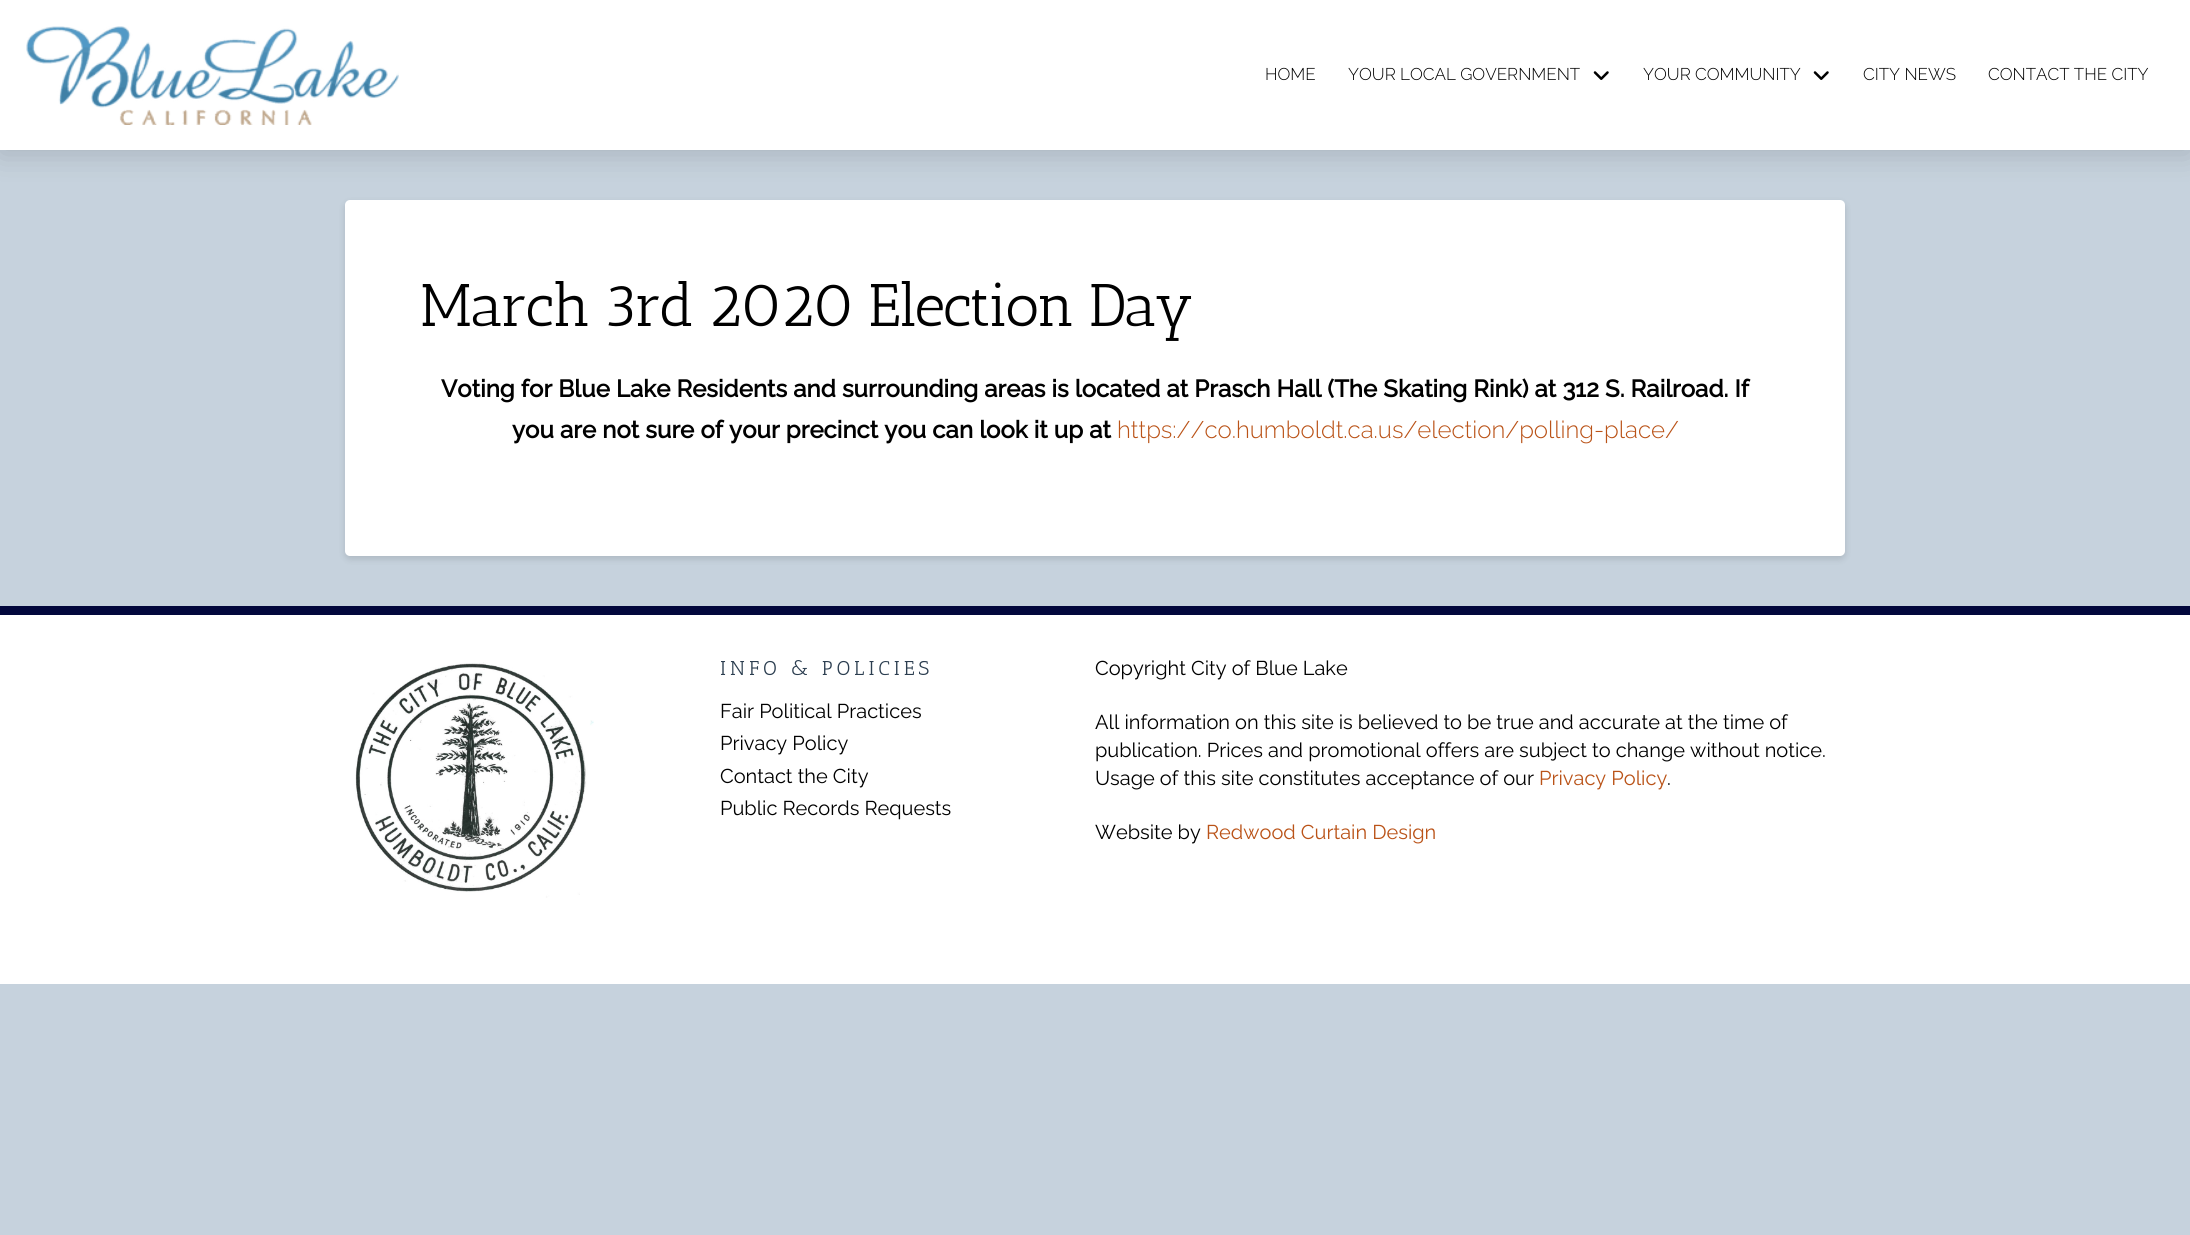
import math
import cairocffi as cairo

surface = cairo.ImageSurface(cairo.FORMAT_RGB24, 2190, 1235)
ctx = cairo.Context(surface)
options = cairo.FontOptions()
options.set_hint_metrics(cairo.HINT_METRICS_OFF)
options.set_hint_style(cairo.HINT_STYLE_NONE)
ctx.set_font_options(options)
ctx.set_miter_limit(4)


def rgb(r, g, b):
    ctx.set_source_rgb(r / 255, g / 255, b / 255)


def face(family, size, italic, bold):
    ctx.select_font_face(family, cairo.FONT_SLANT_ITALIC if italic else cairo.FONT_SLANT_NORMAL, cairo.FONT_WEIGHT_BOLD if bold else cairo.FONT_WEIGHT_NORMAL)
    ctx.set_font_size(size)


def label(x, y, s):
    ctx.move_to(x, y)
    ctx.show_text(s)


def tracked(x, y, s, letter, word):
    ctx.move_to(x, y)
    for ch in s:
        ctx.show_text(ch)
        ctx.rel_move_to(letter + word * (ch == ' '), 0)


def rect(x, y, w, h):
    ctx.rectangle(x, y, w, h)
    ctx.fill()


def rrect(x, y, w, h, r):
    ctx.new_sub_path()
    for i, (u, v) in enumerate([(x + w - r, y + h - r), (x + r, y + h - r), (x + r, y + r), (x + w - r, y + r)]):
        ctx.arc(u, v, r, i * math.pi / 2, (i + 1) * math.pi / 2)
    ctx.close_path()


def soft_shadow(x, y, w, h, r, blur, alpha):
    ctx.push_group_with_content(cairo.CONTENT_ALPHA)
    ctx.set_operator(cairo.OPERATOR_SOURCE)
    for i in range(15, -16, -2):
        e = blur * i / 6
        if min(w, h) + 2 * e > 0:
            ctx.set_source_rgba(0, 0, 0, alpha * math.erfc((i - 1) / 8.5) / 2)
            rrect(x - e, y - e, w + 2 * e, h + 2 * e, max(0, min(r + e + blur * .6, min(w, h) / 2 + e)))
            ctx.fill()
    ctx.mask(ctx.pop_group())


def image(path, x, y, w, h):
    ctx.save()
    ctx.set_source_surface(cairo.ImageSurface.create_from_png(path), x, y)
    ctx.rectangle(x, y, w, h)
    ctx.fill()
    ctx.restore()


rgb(198, 210, 221)
ctx.paint()
rgb(0, 0, 0)
soft_shadow(345, 203, 1500, 356, 5, 3.5, 0.13)
rgb(255, 255, 255)
rrect(345, 200, 1500, 356, 5)
ctx.fill()
rgb(0, 0, 0)
soft_shadow(0, 4, 2190, 150, 0, 15.5, 0.15)
rgb(255, 255, 255)
rect(0, 0, 2190, 150)
image('image0.png', 26, 26, 373, 99)
face('Raleway Light', 17, 0, 0)
rgb(0, 0, 0)
label(1265, 80, 'HOME')
label(1348, 80, 'YOUR LOCAL GOVERNMENT')
image('image1.png', 1593, 71, 16, 9)
label(1643, 80, 'YOUR COMMUNITY')
image('image1.png', 1813, 71, 16, 9)
label(1863, 80, 'CITY NEWS')
label(1988, 80, 'CONTACT THE CITY')
face('Antic Slab', 60, 0, 0)
tracked(420, 326, 'March 3rd 2020 Election Day', -2.1, 0)
face('Raleway', 24, 0, 1)
label(441, 397, 'Voting for Blue Lake Residents and surrounding areas is located at Prasch Hall (The Skating Rink) at 312 S. Railroad. If')
label(512, 438, 'you are not sure of your precinct you can look it up at')
face('Raleway Light', 24, 0, 0)
rgb(186, 83, 24)
label(1117, 438, 'https://co.humboldt.ca.us/election/polling-place/')
rgb(255, 255, 255)
rect(0, 615, 2190, 369)
rgb(2, 7, 60)
rect(0, 606, 2190, 9)
image('image2.png', 355, 662, 239, 236)
face('Antic Slab', 20, 0, 0)
rgb(44, 62, 80)
tracked(720, 675, 'INFO & POLICIES', 4, 0)
face('Raleway', 20, 0, 0)
rgb(0, 0, 0)
label(720, 718, 'Fair Political Practices')
label(720, 750, 'Privacy Policy')
label(720, 783, 'Contact the City')
label(720, 815, 'Public Records Requests')
label(1095, 675, 'Copyright City of Blue Lake')
label(1095, 729, 'All information on this site is believed to be true and accurate at the time of')
label(1095, 757, 'publication. Prices and promotional offers are subject to change without notice.')
label(1095, 785, 'Usage of this site constitutes acceptance of our')
rgb(186, 83, 24)
label(1539, 785, 'Privacy Policy')
rgb(0, 0, 0)
label(1667, 785, '.')
label(1095, 839, 'Website by')
rgb(186, 83, 24)
label(1206, 839, 'Redwood Curtain Design')
surface.write_to_png('render.png')
